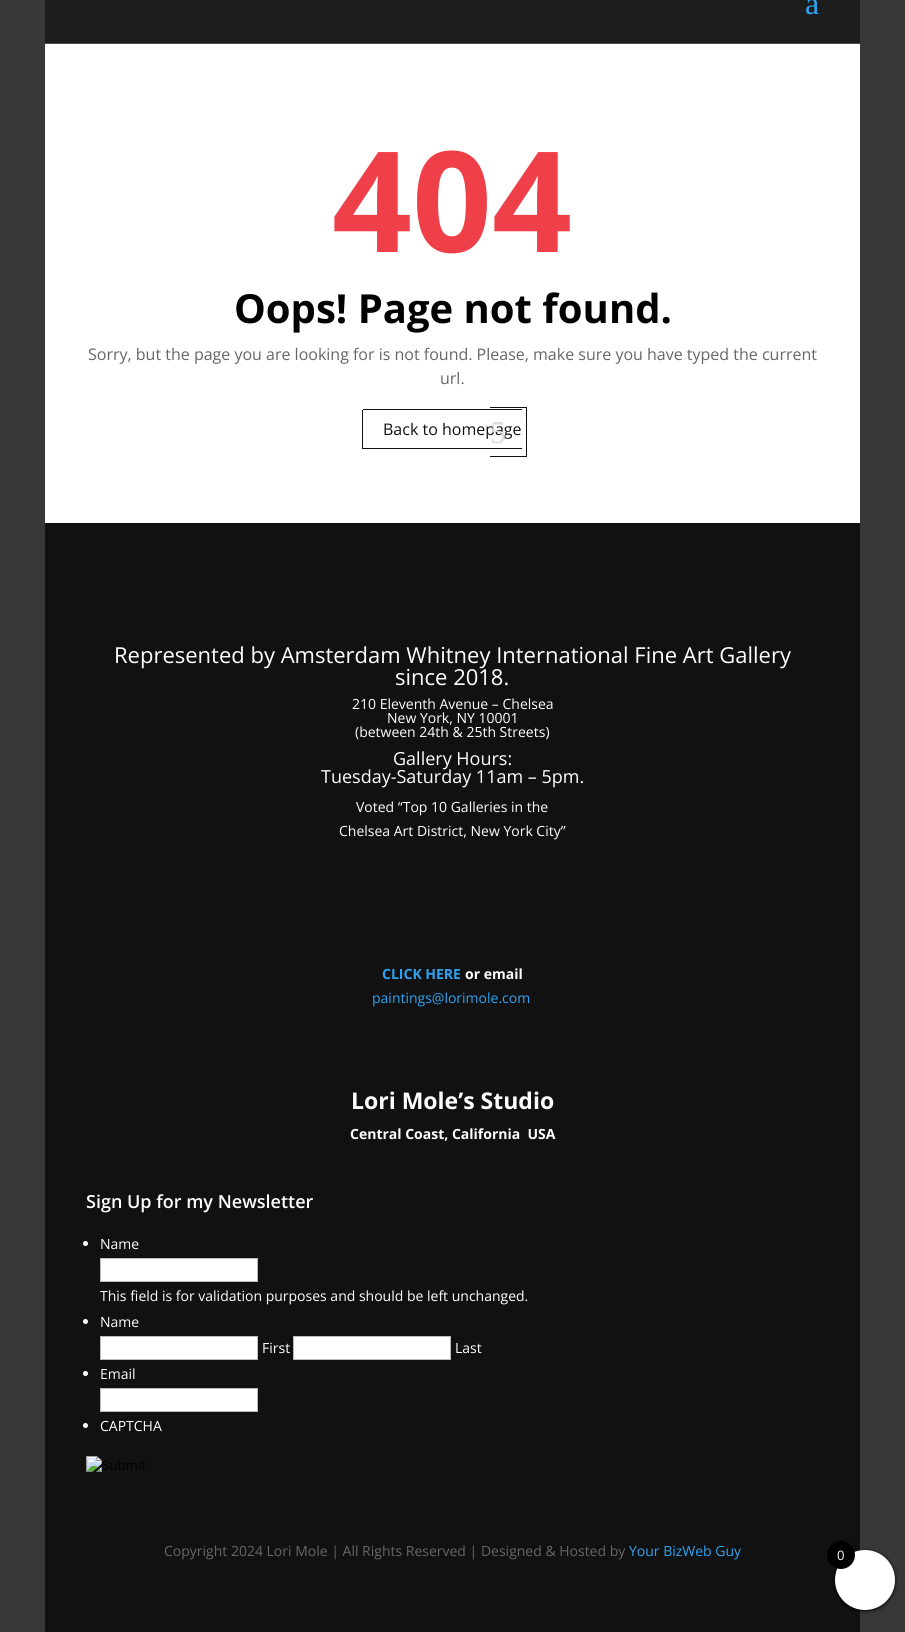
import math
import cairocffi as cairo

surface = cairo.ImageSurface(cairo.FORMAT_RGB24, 905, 1632)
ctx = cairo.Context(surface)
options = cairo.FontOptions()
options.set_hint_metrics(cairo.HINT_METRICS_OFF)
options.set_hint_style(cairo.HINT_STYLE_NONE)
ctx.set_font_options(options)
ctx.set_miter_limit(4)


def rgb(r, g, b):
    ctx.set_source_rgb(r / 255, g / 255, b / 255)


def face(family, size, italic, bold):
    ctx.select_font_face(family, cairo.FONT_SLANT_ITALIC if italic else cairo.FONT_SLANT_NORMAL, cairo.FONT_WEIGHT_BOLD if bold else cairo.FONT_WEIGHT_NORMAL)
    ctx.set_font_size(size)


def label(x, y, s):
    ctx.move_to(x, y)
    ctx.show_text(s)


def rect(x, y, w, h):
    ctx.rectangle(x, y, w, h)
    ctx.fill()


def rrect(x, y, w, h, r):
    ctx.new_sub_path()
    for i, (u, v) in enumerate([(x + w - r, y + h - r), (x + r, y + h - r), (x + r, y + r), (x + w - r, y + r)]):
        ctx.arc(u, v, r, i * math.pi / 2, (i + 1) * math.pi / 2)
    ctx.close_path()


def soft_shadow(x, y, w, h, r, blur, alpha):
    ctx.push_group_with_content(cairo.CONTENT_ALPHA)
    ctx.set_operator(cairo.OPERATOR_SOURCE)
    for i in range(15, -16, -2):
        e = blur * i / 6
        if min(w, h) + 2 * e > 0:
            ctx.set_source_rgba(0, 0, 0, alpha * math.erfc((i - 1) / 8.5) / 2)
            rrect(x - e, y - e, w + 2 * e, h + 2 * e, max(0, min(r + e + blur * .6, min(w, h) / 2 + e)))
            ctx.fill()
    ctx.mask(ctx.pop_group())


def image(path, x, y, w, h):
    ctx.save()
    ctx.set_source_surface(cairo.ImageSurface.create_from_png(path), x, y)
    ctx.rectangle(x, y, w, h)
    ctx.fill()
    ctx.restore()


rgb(56, 56, 56)
ctx.paint()
rgb(29, 29, 29)
rect(45, 0, 815, 43)
rgb(79, 79, 79)
rect(45, 43, 815, 1)
face('Liberation Serif', 32, 0, 0)
rgb(46, 163, 242)
label(805, 14, 'a')
rgb(255, 255, 255)
rect(45, 44, 815, 479)
face('Open Sans', 140, 0, 1)
rgb(239, 63, 73)
label(332, 252, '404')
face('Open Sans', 40, 0, 1)
rgb(0, 0, 0)
label(234, 323, 'Oops! Page not found.')
face('Open Sans', 16, 0, 0)
rgb(102, 102, 102)
label(88, 360, 'Sorry, but the page you are looking for is not found. Please, make sure you have typed the current')
label(440, 384, 'url.')
rgb(17, 17, 17)
rect(363, 409, 159, 1)
rect(363, 448, 159, 1)
rect(362, 410, 1, 39)
rect(490, 407, 37, 1)
rect(526, 408, 1, 49)
rect(490, 456, 37, 1)
label(383, 435, 'Back to homepage')
face('Liberation Serif', 32, 0, 0)
rgb(220, 220, 220)
label(490, 443, '5')
rgb(17, 17, 17)
rect(45, 523, 815, 1109)
face('Open Sans', 22, 0, 0)
rgb(255, 255, 255)
label(114, 663, 'Represented by Amsterdam Whitney International Fine Art Gallery')
label(395, 685, 'since 2018.')
face('Open Sans', 14, 0, 0)
label(352, 709, '210 Eleventh Avenue – Chelsea')
label(387, 723, 'New York, NY 10001')
label(355, 737, '(between 24th & 25th Streets)')
face('Open Sans', 18, 0, 0)
label(393, 765, 'Gallery Hours:')
label(321, 783, 'Tuesday-Saturday 11am – 5pm.')
face('Open Sans', 14, 0, 0)
label(356, 812, 'Voted “Top 10 Galleries in the')
label(339, 836, 'Chelsea Art District, New York City”')
face('Open Sans', 14, 0, 1)
rgb(46, 163, 242)
label(382, 979, 'CLICK HERE')
rgb(255, 255, 255)
label(465, 979, 'or email')
face('Open Sans', 14, 0, 0)
rgb(46, 163, 242)
label(372, 1003, 'paintings@lorimole.com')
face('Open Sans', 23, 0, 1)
rgb(255, 255, 255)
label(351, 1109, 'Lori Mole’s Studio')
face('Open Sans', 14, 0, 1)
label(350, 1139, 'Central Coast, California  USA')
face('Open Sans SemiBold', 18, 0, 0)
label(86, 1208, 'Sign Up for my Newsletter')
ctx.new_path()
ctx.arc(85.5, 1243.5, 2.5, 0, 2 * math.pi)
ctx.fill()
face('Open Sans', 14, 0, 0)
label(100, 1249, 'Name')
ctx.rectangle(100.5, 1258.5, 157, 23)
ctx.fill_preserve()
rgb(187, 187, 187)
ctx.set_line_width(1)
ctx.stroke()
rgb(255, 255, 255)
label(100, 1301, 'This field is for validation purposes and should be left unchanged.')
ctx.new_path()
ctx.arc(85.5, 1321.5, 2.5, 0, 2 * math.pi)
ctx.fill()
label(100, 1327, 'Name')
ctx.rectangle(100.5, 1336.5, 157, 23)
ctx.fill_preserve()
rgb(187, 187, 187)
ctx.stroke()
rgb(255, 255, 255)
label(262, 1353, 'First')
ctx.rectangle(293.5, 1336.5, 157, 23)
ctx.fill_preserve()
rgb(187, 187, 187)
ctx.stroke()
rgb(255, 255, 255)
label(455, 1353, 'Last')
ctx.new_path()
ctx.arc(85.5, 1373.5, 2.5, 0, 2 * math.pi)
ctx.fill()
label(100, 1379, 'Email')
ctx.rectangle(100.5, 1388.5, 157, 23)
ctx.fill_preserve()
rgb(187, 187, 187)
ctx.stroke()
rgb(255, 255, 255)
ctx.arc(85.5, 1425.5, 2.5, 0, 2 * math.pi)
ctx.fill()
label(100, 1431, 'CAPTCHA')
image('image0.png', 86, 1456, 60, 16)
rgb(102, 102, 102)
label(164, 1556, 'Copyright 2024 Lori Mole | All Rights Reserved | Designed & Hosted by')
rgb(46, 163, 242)
label(629, 1556, 'Your BizWeb Guy')
rgb(0, 0, 0)
soft_shadow(835, 1551, 60, 60, 30, 2, 1)
rgb(255, 255, 255)
ctx.arc(865, 1580, 30, 0, 2 * math.pi)
ctx.fill()
rgb(0, 0, 0)
ctx.arc(841, 1555, 14, 0, 2 * math.pi)
ctx.fill()
face('Open Sans', 13, 0, 0)
rgb(255, 255, 255)
label(837, 1560, '0')
surface.write_to_png('render.png')
